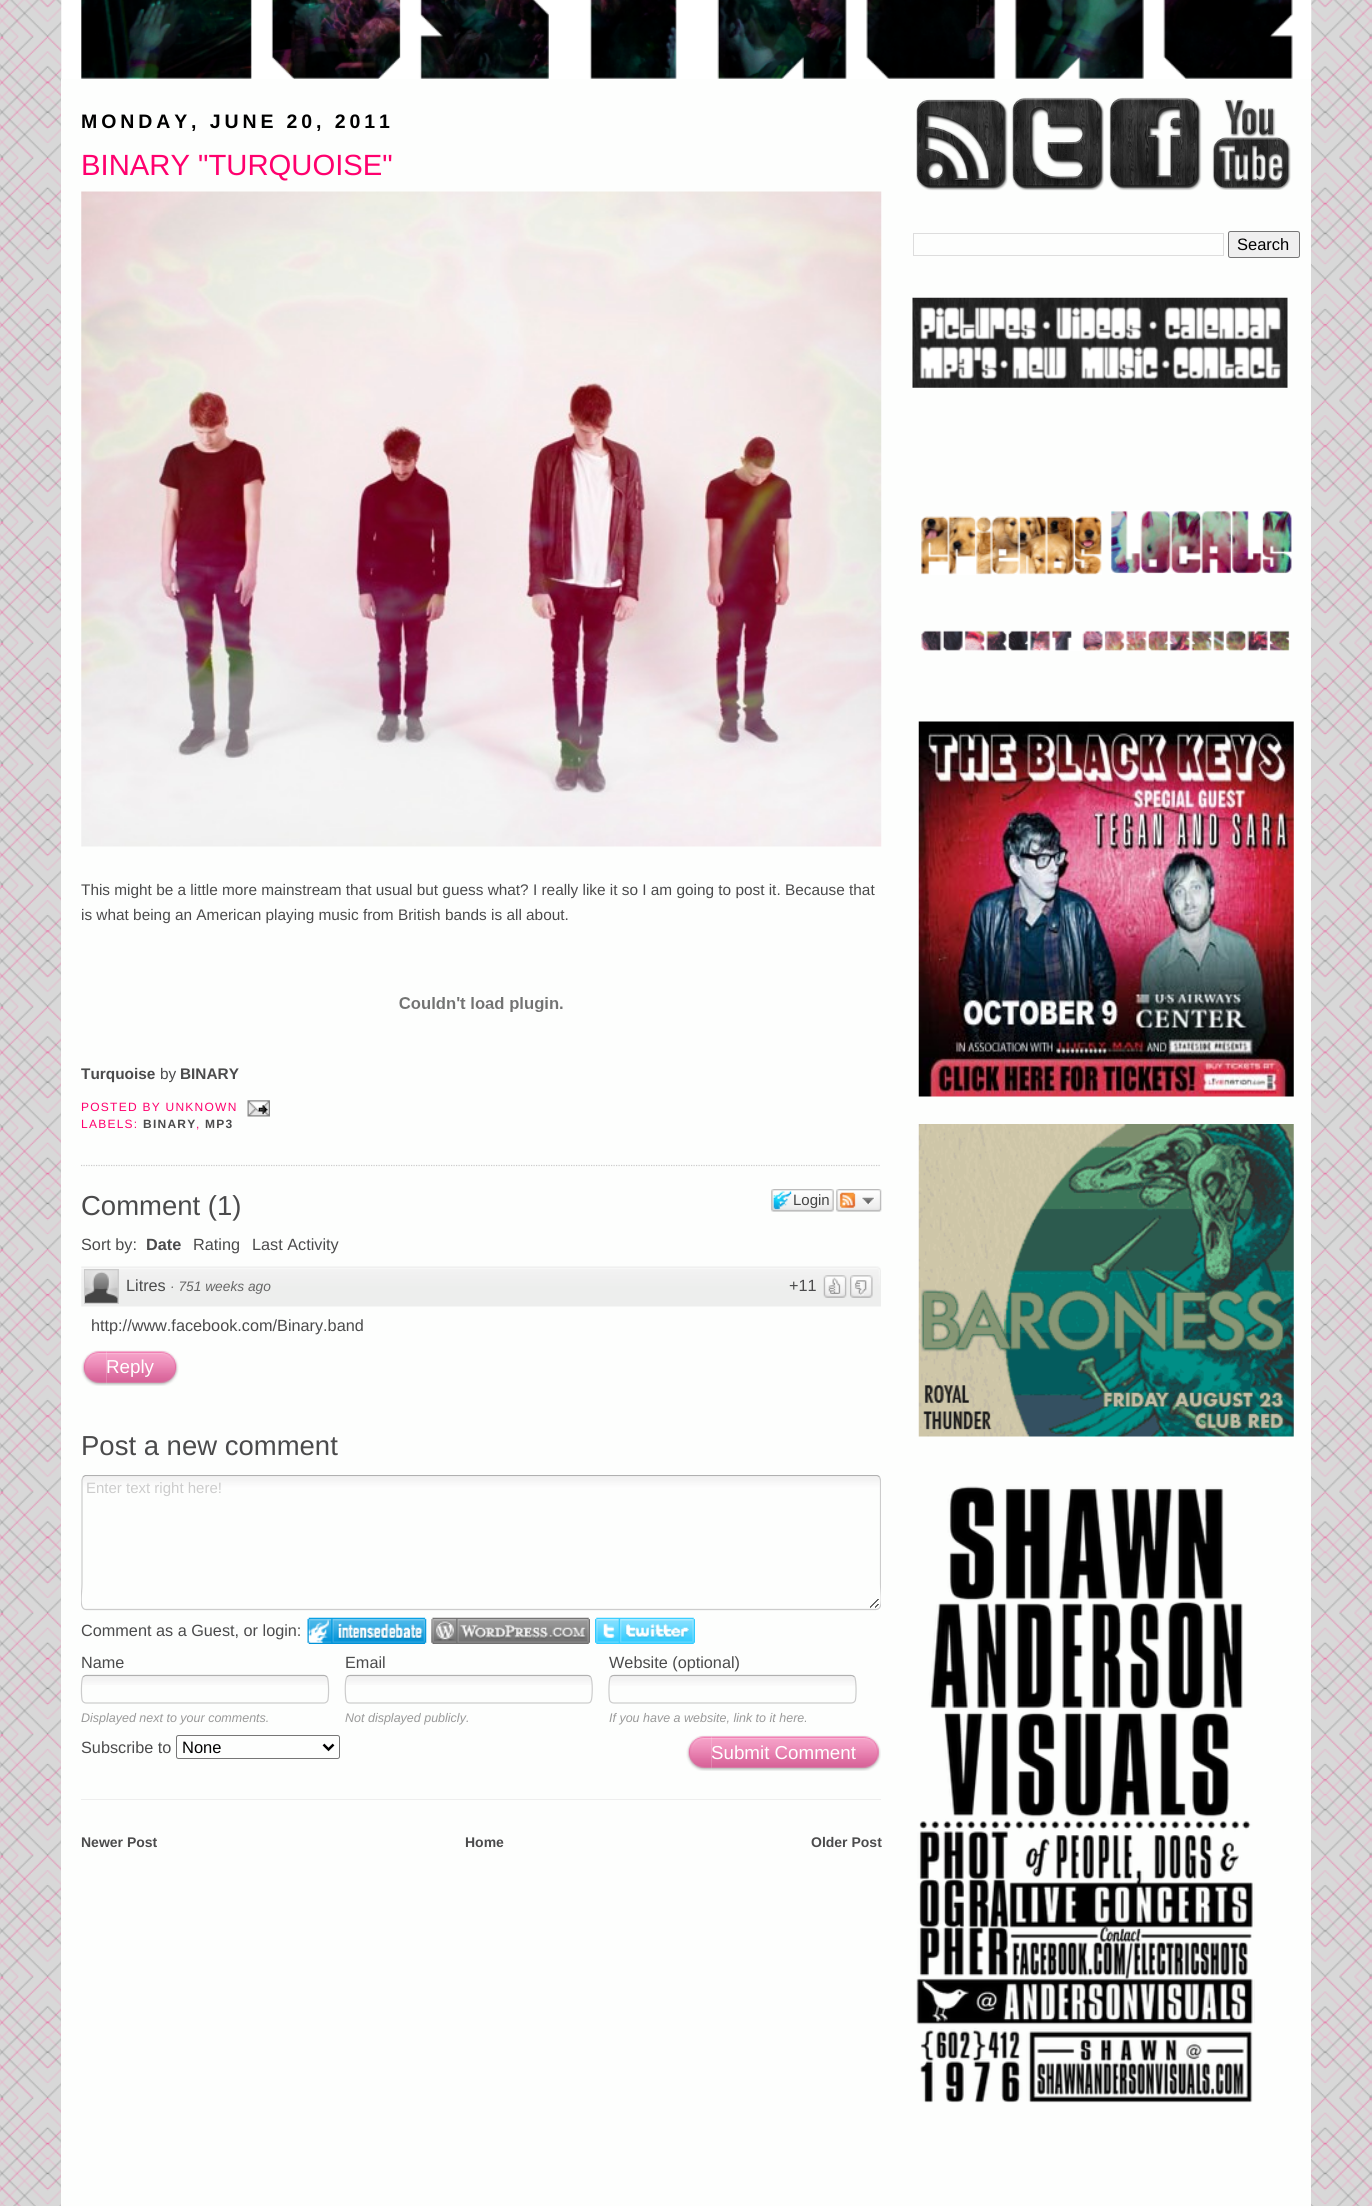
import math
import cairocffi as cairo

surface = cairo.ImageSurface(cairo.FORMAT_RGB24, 1372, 2206)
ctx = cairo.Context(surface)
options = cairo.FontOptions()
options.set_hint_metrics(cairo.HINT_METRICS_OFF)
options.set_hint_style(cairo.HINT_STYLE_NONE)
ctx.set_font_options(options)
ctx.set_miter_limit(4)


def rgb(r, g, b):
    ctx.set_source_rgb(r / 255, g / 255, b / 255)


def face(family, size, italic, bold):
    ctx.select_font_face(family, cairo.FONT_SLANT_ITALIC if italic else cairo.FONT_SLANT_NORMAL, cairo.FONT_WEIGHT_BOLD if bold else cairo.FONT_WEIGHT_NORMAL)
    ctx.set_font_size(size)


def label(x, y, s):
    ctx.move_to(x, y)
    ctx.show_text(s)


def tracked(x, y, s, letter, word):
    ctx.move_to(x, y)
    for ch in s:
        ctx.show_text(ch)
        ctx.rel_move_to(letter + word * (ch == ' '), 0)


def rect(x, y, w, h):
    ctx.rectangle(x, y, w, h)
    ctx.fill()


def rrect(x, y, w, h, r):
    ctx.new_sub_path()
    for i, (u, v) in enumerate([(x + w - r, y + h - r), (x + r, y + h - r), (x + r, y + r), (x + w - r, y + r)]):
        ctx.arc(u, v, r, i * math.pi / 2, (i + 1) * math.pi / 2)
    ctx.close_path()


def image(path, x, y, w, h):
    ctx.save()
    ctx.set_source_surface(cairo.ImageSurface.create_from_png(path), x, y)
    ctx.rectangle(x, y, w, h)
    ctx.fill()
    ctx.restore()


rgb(255, 255, 255)
ctx.paint()
image('image0.png', 0, 0, 1372, 2206)
image('image1.png', 61, 0, 1251, 79)
rgb(253, 254, 253)
rect(61, 79, 1250, 2127)
face('Liberation Sans', 19.5, 0, 1)
rgb(0, 0, 0)
tracked(81, 128, 'MONDAY, JUNE 20, 2011', 3.9, 0)
ctx.new_path()
ctx.move_to(81, 1165.5)
ctx.line_to(881, 1165.5)
rgb(204, 204, 204)
ctx.set_line_width(1.2)
ctx.set_dash([1.25, 1.25])
ctx.stroke()
face('Liberation Sans', 29.25, 0, 0)
rgb(255, 0, 110)
label(81, 175, 'BINARY "TURQUOISE"')
image('image2.png', 81, 191, 801, 656)
face('Liberation Sans', 15.37, 0, 0)
rgb(75, 75, 76)
label(81, 895, 'This might be a little more mainstream that usual but guess what? I really like it so I am going to post it. Because that')
label(81, 920, 'is what being an American playing music from British bands is all about.')
image('image3.png', 399, 997, 164, 15)
face('Liberation Sans', 15.37, 0, 1)
label(81, 1079, 'Turquoise')
face('Liberation Sans', 15.37, 0, 0)
label(160, 1079, 'by')
face('Liberation Sans', 15.37, 0, 1)
label(180, 1079, 'BINARY')
face('Liberation Sans', 12, 0, 0)
rgb(255, 0, 110)
tracked(81, 1111, 'POSTED BY UNKNOWN', 1.25, 0)
image('image4.png', 247, 1100, 23, 17)
tracked(81, 1128, 'LABELS:', 1.25, 0)
face('Liberation Sans', 12, 0, 1)
rgb(75, 75, 76)
tracked(143, 1128, 'BINARY', 1.25, 0)
face('Liberation Sans', 12, 0, 0)
rgb(255, 0, 110)
tracked(196, 1128, ',', 1.25, 0)
face('Liberation Sans', 12, 0, 1)
rgb(75, 75, 76)
tracked(205, 1128, 'MP3', 1.25, 0)
face('Liberation Sans', 27.5, 0, 0)
label(81, 1215, 'Comment (1)')
image('image5.png', 771, 1189, 59, 23)
face('Liberation Sans', 15, 0, 0)
rgb(68, 68, 68)
label(793, 1205, 'Login')
image('image6.png', 830, 1189, 4, 23)
image('image7.png', 836, 1189, 46, 23)
face('Liberation Sans', 16.25, 0, 0)
rgb(75, 75, 76)
label(81, 1250, 'Sort by:')
face('Liberation Sans', 16.25, 0, 1)
label(146, 1250, 'Date')
face('Liberation Sans', 16.25, 0, 0)
label(193, 1250, 'Rating')
label(252, 1250, 'Last Activity')
image('image8.png', 81, 1266, 800, 41)
rgb(204, 204, 204)
rect(84, 1269, 35, 35)
image('image9.png', 85, 1270, 33, 33)
rgb(75, 75, 76)
label(126, 1291, 'Litres')
face('Liberation Sans', 13.75, 1, 0)
rgb(102, 102, 102)
label(170, 1291, '· 751 weeks ago')
face('Liberation Sans', 16.25, 0, 0)
rgb(75, 75, 76)
label(789, 1291, '+11')
image('image10.png', 823, 1275, 24, 23)
image('image11.png', 850, 1275, 23, 23)
label(91, 1331, 'http://www.facebook.com/Binary.band')
image('image12.png', 81, 1350, 26, 36)
image('image13.png', 106, 1350, 73, 36)
face('Liberation Sans', 18.75, 0, 0)
rgb(255, 255, 255)
label(106, 1373, 'Reply')
face('Liberation Sans', 27.5, 0, 0)
rgb(75, 75, 76)
label(81, 1455, 'Post a new comment')
image('image14.png', 82, 1476, 799, 132)
ctx.save()
ctx.rectangle(81, 1475, 800, 140)
ctx.clip()
ctx.new_path()
ctx.move_to(83, 1477)
ctx.curve_to(84, 1476, 85, 1475.5, 86, 1475.5)
ctx.line_to(876, 1475.5)
ctx.curve_to(877.5, 1475.5, 878.5, 1476, 879.5, 1477)
rgb(176, 176, 176)
ctx.set_dash([])
ctx.stroke()
ctx.new_path()
ctx.move_to(879.5, 1477)
ctx.line_to(880.5, 1480)
ctx.line_to(880.5, 1584)
ctx.curve_to(880.5, 1593, 884, 1609.5, 876, 1609.5)
ctx.line_to(86, 1609.5)
ctx.curve_to(78.5, 1609.5, 82, 1593, 82, 1584)
ctx.line_to(82, 1480)
ctx.line_to(83, 1477)
rgb(204, 204, 204)
ctx.stroke()
ctx.restore()
face('Liberation Sans', 15, 0, 0)
rgb(204, 204, 204)
label(86, 1493, 'Enter text right here!')
face('Liberation Sans', 16.25, 0, 0)
rgb(75, 75, 76)
label(81, 1636, 'Comment as a Guest, or login:')
image('image15.png', 307, 1617, 120, 27)
image('image16.png', 431, 1617, 159, 27)
image('image17.png', 595, 1617, 100, 27)
label(81, 1668, 'Name')
label(345, 1668, 'Email')
label(609, 1668, 'Website (optional)')
image('image18.png', 82, 1676, 247, 9)
ctx.new_path()
ctx.move_to(83, 1677)
ctx.curve_to(84, 1676, 85, 1675.5, 86, 1675.5)
ctx.line_to(324, 1675.5)
ctx.curve_to(325, 1675.5, 326, 1676, 327, 1677)
rgb(176, 176, 176)
ctx.set_dash([])
ctx.stroke()
ctx.new_path()
ctx.move_to(327, 1677)
ctx.curve_to(329, 1679, 329, 1699, 327.5, 1701)
ctx.curve_to(326.5, 1702.5, 325, 1703, 324, 1703)
ctx.line_to(86, 1703)
ctx.curve_to(85, 1703, 83.5, 1702.5, 82.5, 1701)
ctx.curve_to(81, 1699, 81, 1679, 83, 1677)
rgb(204, 204, 204)
ctx.stroke()
face('Liberation Sans', 12.5, 1, 0)
rgb(153, 153, 153)
label(81, 1722, 'Displayed next to your comments.')
image('image19.png', 346, 1676, 246, 9)
ctx.new_path()
ctx.move_to(347, 1677)
ctx.curve_to(347.5, 1676, 349, 1675.5, 350, 1675.5)
ctx.line_to(587.5, 1675.5)
ctx.curve_to(588.5, 1675.5, 590, 1676, 590.5, 1677)
rgb(176, 176, 176)
ctx.stroke()
ctx.new_path()
ctx.move_to(590.5, 1677)
ctx.curve_to(593, 1679, 592.5, 1699, 591, 1701)
ctx.curve_to(590.5, 1702.5, 589, 1703, 587.5, 1703)
ctx.line_to(350, 1703)
ctx.curve_to(348.5, 1703, 347, 1702.5, 346.5, 1701)
ctx.curve_to(345, 1699, 344.5, 1679, 347, 1677)
rgb(204, 204, 204)
ctx.stroke()
rgb(153, 153, 153)
label(345, 1722, 'Not displayed publicly.')
image('image20.png', 610, 1676, 246, 10)
ctx.new_path()
ctx.move_to(610.5, 1677)
ctx.curve_to(611.5, 1676, 612.5, 1675.5, 614, 1675.5)
ctx.line_to(851, 1675.5)
ctx.curve_to(852.5, 1675.5, 853.5, 1676, 854.5, 1677)
rgb(176, 176, 176)
ctx.stroke()
ctx.new_path()
ctx.move_to(854.5, 1677)
ctx.curve_to(856.5, 1679, 856.5, 1699, 855, 1701)
ctx.curve_to(854, 1702.5, 852.5, 1703, 851, 1703)
ctx.line_to(614, 1703)
ctx.curve_to(612.5, 1703, 611, 1702.5, 610, 1701)
ctx.curve_to(608.5, 1699, 608.5, 1679, 610.5, 1677)
rgb(204, 204, 204)
ctx.stroke()
rgb(153, 153, 153)
label(609, 1722, 'If you have a website, link to it here.')
face('Liberation Sans', 16.25, 0, 0)
rgb(75, 75, 76)
label(81, 1753, 'Subscribe to')
rrect(176.5, 1735.5, 163, 23, 2)
rgb(118, 118, 118)
ctx.set_line_width(1)
ctx.stroke()
ctx.new_path()
ctx.move_to(323.5, 1744.5)
ctx.line_to(328.5, 1749.5)
ctx.line_to(333.5, 1744.5)
rgb(0, 0, 0)
ctx.set_line_width(2.5)
ctx.stroke()
face('Liberation Sans', 16.5, 0, 0)
label(182, 1753, 'None')
image('image21.png', 686, 1735, 26, 36)
image('image22.png', 711, 1735, 170, 36)
face('Liberation Sans', 18.75, 0, 0)
rgb(255, 255, 255)
label(711, 1759, 'Submit Comment')
rgb(238, 238, 238)
rect(81, 1799, 800, 1)
face('Liberation Sans', 14, 0, 1)
rgb(75, 75, 76)
label(81, 1847, 'Newer Post')
label(465, 1847, 'Home')
label(811, 1847, 'Older Post')
image('image23.png', 916, 99, 92, 92)
image('image24.png', 1011, 97, 93, 94)
image('image25.png', 1109, 97, 93, 94)
image('image26.png', 1212, 99, 79, 91)
ctx.rectangle(913.5, 233.5, 310, 22)
rgb(221, 221, 221)
ctx.set_line_width(1)
ctx.stroke()
rgb(239, 239, 239)
rrect(1228.5, 231.5, 71, 26, 2)
ctx.fill_preserve()
rgb(118, 118, 118)
ctx.stroke()
face('Liberation Sans', 16.5, 0, 0)
rgb(0, 0, 0)
label(1237, 250, 'Search')
image('image27.png', 912, 297, 376, 91)
image('image28.png', 921, 516, 181, 59)
image('image29.png', 1110, 510, 182, 64)
image('image30.png', 921, 630, 369, 21)
image('image31.png', 918, 721, 376, 376)
image('image32.png', 918, 1124, 376, 313)
image('image33.png', 916, 1486, 339, 617)
surface.write_to_png('render.png')
